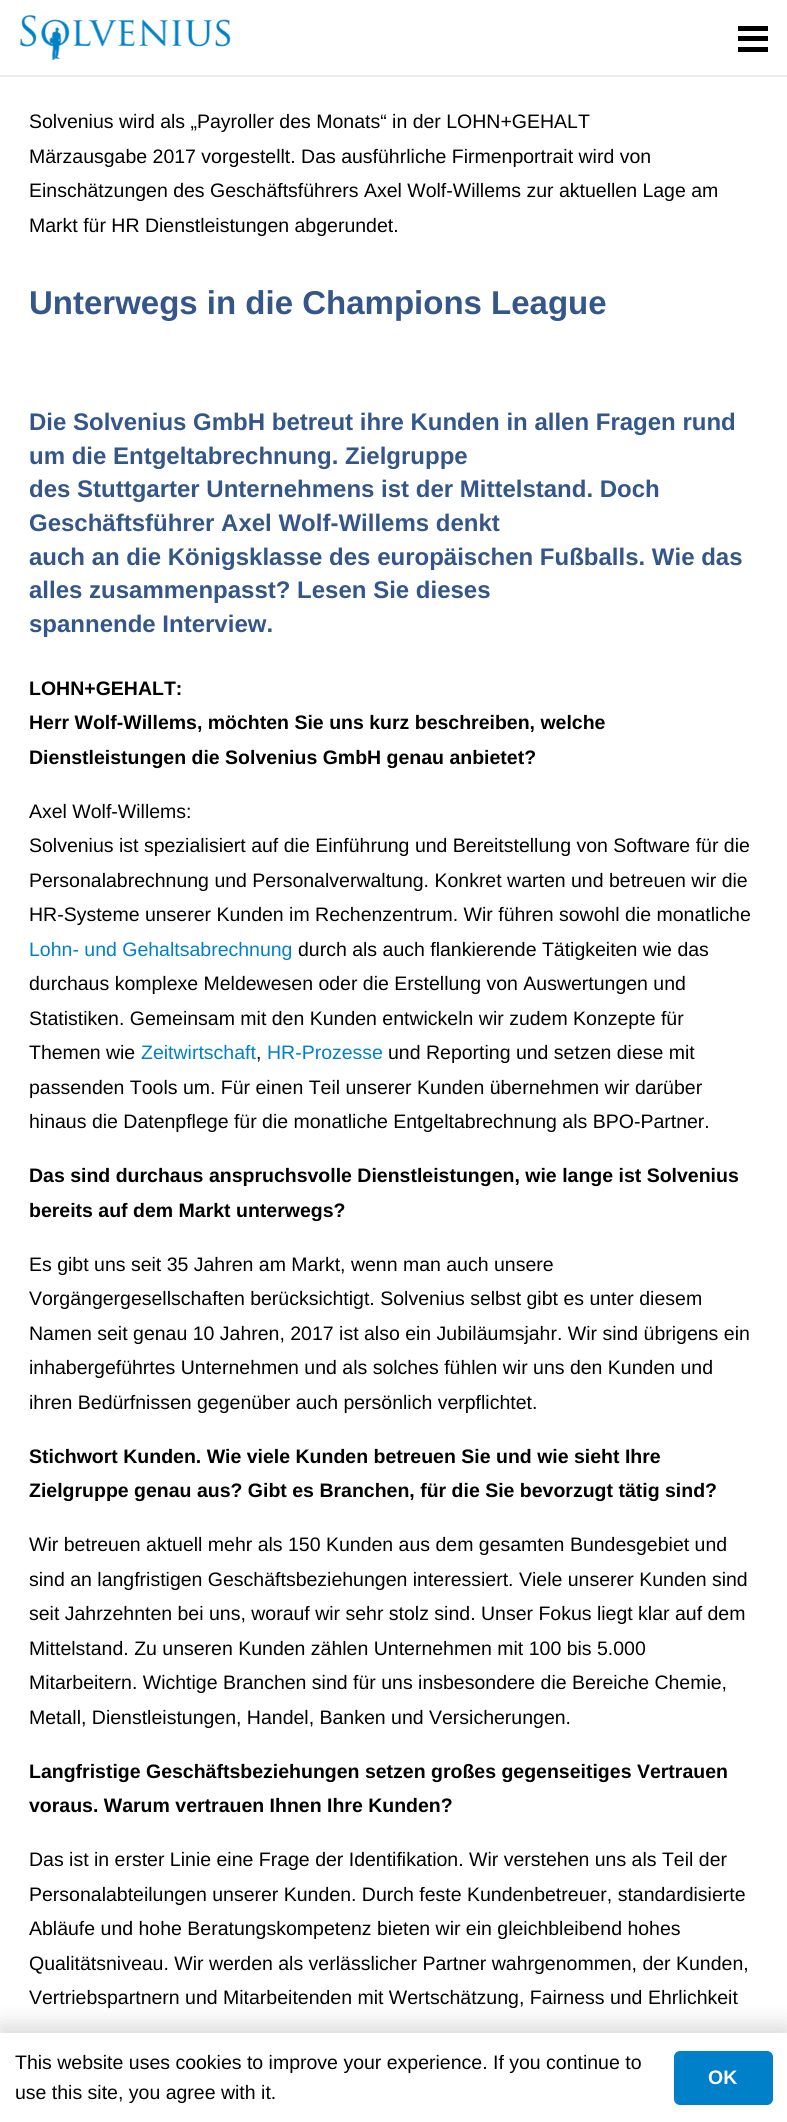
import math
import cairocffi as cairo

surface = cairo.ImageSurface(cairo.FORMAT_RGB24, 787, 2122)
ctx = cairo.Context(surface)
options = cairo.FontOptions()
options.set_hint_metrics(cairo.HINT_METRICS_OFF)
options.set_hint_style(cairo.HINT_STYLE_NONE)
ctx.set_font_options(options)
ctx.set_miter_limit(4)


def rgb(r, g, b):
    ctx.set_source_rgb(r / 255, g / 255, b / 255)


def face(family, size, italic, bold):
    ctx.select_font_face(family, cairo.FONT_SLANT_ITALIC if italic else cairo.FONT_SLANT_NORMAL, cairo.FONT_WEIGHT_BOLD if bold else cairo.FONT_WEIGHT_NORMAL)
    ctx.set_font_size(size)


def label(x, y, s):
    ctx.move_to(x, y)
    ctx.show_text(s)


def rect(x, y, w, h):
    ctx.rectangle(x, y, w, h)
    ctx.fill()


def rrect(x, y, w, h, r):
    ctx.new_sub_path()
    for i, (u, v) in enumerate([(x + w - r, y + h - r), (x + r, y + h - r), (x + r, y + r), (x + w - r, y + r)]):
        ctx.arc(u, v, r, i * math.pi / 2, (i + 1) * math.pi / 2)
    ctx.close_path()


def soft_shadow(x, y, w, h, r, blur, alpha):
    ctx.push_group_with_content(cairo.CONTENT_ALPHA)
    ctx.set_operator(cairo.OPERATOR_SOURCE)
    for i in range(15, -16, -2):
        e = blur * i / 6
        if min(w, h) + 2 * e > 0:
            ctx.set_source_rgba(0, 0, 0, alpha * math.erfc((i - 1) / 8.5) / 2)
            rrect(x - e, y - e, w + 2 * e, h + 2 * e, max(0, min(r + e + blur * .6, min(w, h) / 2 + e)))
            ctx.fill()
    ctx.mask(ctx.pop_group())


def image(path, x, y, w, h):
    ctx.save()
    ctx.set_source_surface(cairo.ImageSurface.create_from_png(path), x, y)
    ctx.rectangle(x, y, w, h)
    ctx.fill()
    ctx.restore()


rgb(255, 255, 255)
ctx.paint()
rgb(235, 235, 235)
ctx.new_path()
ctx.move_to(0, 75)
ctx.line_to(0, 77)
ctx.line_to(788, 77)
ctx.line_to(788, 2)
ctx.line_to(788, 75)
ctx.close_path()
ctx.fill()
image('image0.png', 20, 15, 211, 45)
rgb(0, 0, 0)
rect(738, 36, 30, 5)
rect(738, 26, 30, 5)
rect(738, 47, 30, 5)
face('Liberation Sans', 19.5, 0, 0)
label(29, 128, 'Solvenius wird als „Payroller des Monats“ in der LOHN+GEHALT')
label(29, 163, 'Märzausgabe 2017 vorgestellt. Das ausführliche Firmenportrait wird von')
label(29, 197, 'Einschätzungen des Geschäftsführers Axel Wolf-Willems zur aktuellen Lage am')
label(29, 232, 'Markt für HR Dienstleistungen abgerundet.')
face('Liberation Sans', 33, 0, 1)
rgb(52, 86, 136)
label(29, 314, 'Unterwegs in die Champions League')
face('Liberation Sans', 24, 0, 1)
label(29, 430, 'Die Solvenius GmbH betreut ihre Kunden in allen Fragen rund')
label(29, 464, 'um die Entgeltabrechnung. Zielgruppe')
label(29, 497, 'des Stuttgarter Unternehmens ist der Mittelstand. Doch')
label(29, 531, 'Geschäftsführer Axel Wolf-Willems denkt')
label(29, 565, 'auch an die Königsklasse des europäischen Fußballs. Wie das')
label(29, 598, 'alles zusammenpasst? Lesen Sie dieses')
label(29, 632, 'spannende Interview.')
face('Liberation Sans', 19.5, 0, 1)
rgb(0, 0, 0)
label(29, 695, 'LOHN+GEHALT:')
label(29, 729, 'Herr Wolf-Willems, möchten Sie uns kurz beschreiben, welche')
label(29, 764, 'Dienstleistungen die Solvenius GmbH genau anbietet?')
face('Liberation Sans', 19.5, 0, 0)
label(29, 818, 'Axel Wolf-Willems:')
label(29, 852, 'Solvenius ist spezialisiert auf die Einführung und Bereitstellung von Software für die')
label(29, 887, 'Personalabrechnung und Personalverwaltung. Konkret warten und betreuen wir die')
label(29, 921, 'HR-Systeme unserer Kunden im Rechenzentrum. Wir führen sowohl die monatliche')
rgb(0, 128, 200)
label(29, 956, 'Lohn- und Gehaltsabrechnung')
rgb(0, 0, 0)
label(298, 956, 'durch als auch flankierende Tätigkeiten wie das')
label(29, 990, 'durchaus komplexe Meldewesen oder die Erstellung von Auswertungen und')
label(29, 1025, 'Statistiken. Gemeinsam mit den Kunden entwickeln wir zudem Konzepte für')
label(29, 1059, 'Themen wie')
rgb(0, 128, 200)
label(141, 1059, 'Zeitwirtschaft')
rgb(0, 0, 0)
label(256, 1059, ',')
rgb(0, 128, 200)
label(267, 1059, 'HR-Prozesse')
rgb(0, 0, 0)
label(388, 1059, 'und Reporting und setzen diese mit')
label(29, 1094, 'passenden Tools um. Für einen Teil unserer Kunden übernehmen wir darüber')
label(29, 1128, 'hinaus die Datenpflege für die monatliche Entgeltabrechnung als BPO-Partner.')
face('Liberation Sans', 19.5, 0, 1)
label(29, 1182, 'Das sind durchaus anspruchsvolle Dienstleistungen, wie lange ist Solvenius')
label(29, 1217, 'bereits auf dem Markt unterwegs?')
face('Liberation Sans', 19.5, 0, 0)
label(29, 1271, 'Es gibt uns seit 35 Jahren am Markt, wenn man auch unsere')
label(29, 1305, 'Vorgängergesellschaften berücksichtigt. Solvenius selbst gibt es unter diesem')
label(29, 1340, 'Namen seit genau 10 Jahren, 2017 ist also ein Jubiläumsjahr. Wir sind übrigens ein')
label(29, 1374, 'inhabergeführtes Unternehmen und als solches fühlen wir uns den Kunden und')
label(29, 1409, 'ihren Bedürfnissen gegenüber auch persönlich verpflichtet.')
face('Liberation Sans', 19.5, 0, 1)
label(29, 1463, 'Stichwort Kunden. Wie viele Kunden betreuen Sie und wie sieht Ihre')
label(29, 1497, 'Zielgruppe genau aus? Gibt es Branchen, für die Sie bevorzugt tätig sind?')
face('Liberation Sans', 19.5, 0, 0)
label(29, 1551, 'Wir betreuen aktuell mehr als 150 Kunden aus dem gesamten Bundesgebiet und')
label(29, 1586, 'sind an langfristigen Geschäftsbeziehungen interessiert. Viele unserer Kunden sind')
label(29, 1620, 'seit Jahrzehnten bei uns, worauf wir sehr stolz sind. Unser Fokus liegt klar auf dem')
label(29, 1655, 'Mittelstand. Zu unseren Kunden zählen Unternehmen mit 100 bis 5.000')
label(29, 1689, 'Mitarbeitern. Wichtige Branchen sind für uns insbesondere die Bereiche Chemie,')
label(29, 1724, 'Metall, Dienstleistungen, Handel, Banken und Versicherungen.')
face('Liberation Sans', 19.5, 0, 1)
label(29, 1778, 'Langfristige Geschäftsbeziehungen setzen großes gegenseitiges Vertrauen')
label(29, 1812, 'voraus. Warum vertrauen Ihnen Ihre Kunden?')
face('Liberation Sans', 19.5, 0, 0)
label(29, 1866, 'Das ist in erster Linie eine Frage der Identifikation. Wir verstehen uns als Teil der')
label(29, 1901, 'Personalabteilungen unserer Kunden. Durch feste Kundenbetreuer, standardisierte')
label(29, 1935, 'Abläufe und hohe Beratungskompetenz bieten wir ein gleichbleibend hohes')
label(29, 1970, 'Qualitätsniveau. Wir werden als verlässlicher Partner wahrgenommen, der Kunden,')
label(29, 2004, 'Vertriebspartnern und Mitarbeitenden mit Wertschätzung, Fairness und Ehrlichkeit')
rgb(0, 0, 0)
soft_shadow(0, 2025, 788, 90, 0, 11, 0.15)
rgb(255, 255, 255)
rect(0, 2033, 787, 89)
rgb(0, 0, 0)
label(15, 2069, 'This website uses cookies to improve your experience. If you continue to')
label(15, 2099, 'use this site, you agree with it.')
rgb(0, 128, 200)
rrect(674, 2051, 99, 54, 6)
ctx.fill()
face('Liberation Sans', 19.5, 0, 1)
rgb(255, 255, 255)
label(708, 2084, 'OK')
surface.write_to_png('render.png')
